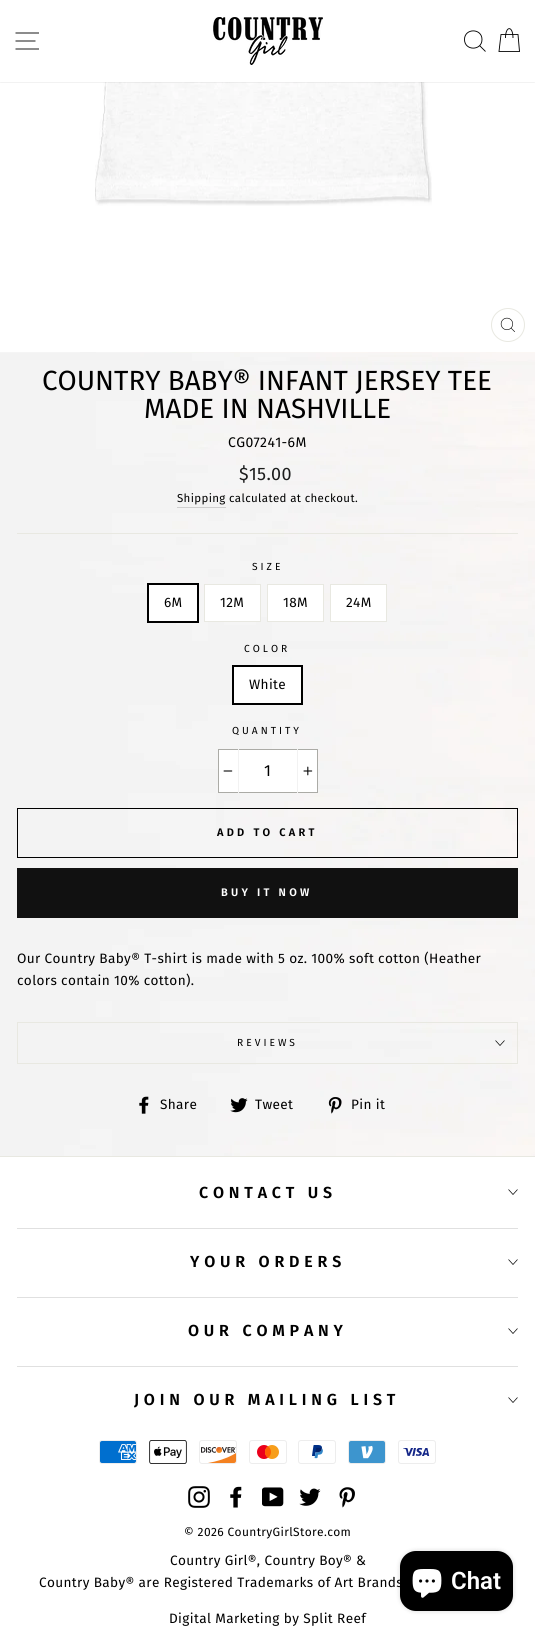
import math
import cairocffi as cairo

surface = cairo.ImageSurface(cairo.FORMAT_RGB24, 535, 1632)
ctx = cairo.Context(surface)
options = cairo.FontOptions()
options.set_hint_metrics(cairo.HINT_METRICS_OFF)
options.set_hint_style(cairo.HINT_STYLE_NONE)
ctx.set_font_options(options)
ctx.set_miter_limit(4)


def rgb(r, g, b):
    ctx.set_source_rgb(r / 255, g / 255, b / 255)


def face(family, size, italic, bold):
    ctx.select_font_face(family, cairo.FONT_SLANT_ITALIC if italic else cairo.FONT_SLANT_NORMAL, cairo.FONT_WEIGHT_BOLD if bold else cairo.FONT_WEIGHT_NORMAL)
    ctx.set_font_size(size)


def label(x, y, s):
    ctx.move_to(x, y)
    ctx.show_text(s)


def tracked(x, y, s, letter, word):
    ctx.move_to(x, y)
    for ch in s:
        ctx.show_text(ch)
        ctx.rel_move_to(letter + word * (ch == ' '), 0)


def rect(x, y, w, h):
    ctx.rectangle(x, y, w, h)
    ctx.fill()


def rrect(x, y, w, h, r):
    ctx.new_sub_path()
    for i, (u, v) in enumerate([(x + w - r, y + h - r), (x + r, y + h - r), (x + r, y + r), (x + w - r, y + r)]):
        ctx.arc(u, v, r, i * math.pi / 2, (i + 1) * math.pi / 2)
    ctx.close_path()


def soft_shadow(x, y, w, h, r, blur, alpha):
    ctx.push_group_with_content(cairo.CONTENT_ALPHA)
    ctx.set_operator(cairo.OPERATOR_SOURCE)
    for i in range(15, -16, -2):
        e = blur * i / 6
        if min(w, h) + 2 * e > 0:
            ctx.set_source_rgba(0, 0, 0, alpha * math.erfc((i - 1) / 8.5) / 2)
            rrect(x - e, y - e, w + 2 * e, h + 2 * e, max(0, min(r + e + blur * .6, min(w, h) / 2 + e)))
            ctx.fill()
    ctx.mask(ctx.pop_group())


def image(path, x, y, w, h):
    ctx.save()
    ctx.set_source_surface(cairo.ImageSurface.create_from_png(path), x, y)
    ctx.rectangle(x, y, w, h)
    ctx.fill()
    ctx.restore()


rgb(255, 255, 255)
ctx.paint()
image('image0.png', 0, 352, 535, 804)
image('image2.png', 95, 82, 337, 124)
rgb(0, 0, 0)
soft_shadow(0, 0, 535, 82, 0, 0.5, 0.2)
rgb(255, 255, 255)
rect(0, 0, 535, 82)
ctx.new_path()
ctx.move_to(15.5, 33)
ctx.line_to(39, 33)
ctx.move_to(15.5, 41)
ctx.line_to(35.5, 41)
ctx.move_to(15.5, 49)
ctx.line_to(39, 49)
rgb(0, 0, 0)
ctx.set_line_width(0.9)
ctx.stroke()
image('image1.png', 213, 17, 110, 48)
ctx.new_path()
ctx.move_to(482, 39.5)
ctx.curve_to(482, 51, 464.5, 51, 464.5, 39.5)
ctx.curve_to(464.5, 28, 482, 28, 482, 39.5)
ctx.close_path()
ctx.move_to(485.5, 51.5)
ctx.line_to(479.5, 45.5)
ctx.move_to(505.5, 38)
ctx.curve_to(505.5, 25.5, 513, 25.5, 513, 38)
ctx.move_to(501, 34.5)
ctx.line_to(518, 34.5)
ctx.line_to(519.5, 51.5)
ctx.line_to(499, 51.5)
ctx.close_path()
ctx.stroke()
ctx.arc(508, 325, 16.5, 0, 2 * math.pi)
rgb(232, 232, 225)
ctx.set_line_width(1)
ctx.stroke()
image('image3.png', 500, 317, 15, 15)
face('Fira Sans', 27.75, 0, 0)
rgb(0, 0, 0)
label(42, 390, 'COUNTRY BABY® INFANT JERSEY TEE')
label(144, 418, 'MADE IN NASHVILLE')
face('Fira Sans', 14, 0, 0)
tracked(228, 447, 'CG07241-6M', 0.35, 0)
face('Fira Sans', 18, 0, 0)
rgb(28, 29, 29)
tracked(239, 480, '$15.00', 0.35, 0)
rgb(207, 207, 207)
rect(177, 507, 49, 1)
face('Fira Sans', 11.5, 0, 0)
rgb(0, 0, 0)
tracked(177, 502, 'Shipping', 0.35, 0)
tracked(229, 502, 'calculated at checkout.', 0.35, 0)
rgb(232, 232, 225)
rect(17, 533, 501, 1)
face('Fira Sans', 10.25, 0, 0)
rgb(0, 0, 0)
tracked(252, 570, 'SIZE', 3, 0)
ctx.rectangle(148, 584, 50, 38)
ctx.set_line_width(2)
ctx.stroke()
rgb(255, 255, 255)
rect(149, 585, 48, 36)
face('Fira Sans', 13.6, 0, 0)
rgb(0, 0, 0)
tracked(164, 607, '6M', 0.35, 0)
ctx.rectangle(204.5, 584.5, 56, 37)
rgb(232, 232, 225)
ctx.set_line_width(1)
ctx.stroke()
rgb(255, 255, 255)
rect(205, 585, 55, 36)
rgb(0, 0, 0)
tracked(220, 607, '12M', 0.35, 0)
ctx.rectangle(267.5, 584.5, 56, 37)
rgb(232, 232, 225)
ctx.stroke()
rgb(255, 255, 255)
rect(268, 585, 55, 36)
rgb(0, 0, 0)
tracked(283, 607, '18M', 0.35, 0)
ctx.rectangle(330.5, 584.5, 56, 37)
rgb(232, 232, 225)
ctx.stroke()
rgb(255, 255, 255)
rect(331, 585, 55, 36)
rgb(0, 0, 0)
tracked(346, 607, '24M', 0.35, 0)
face('Fira Sans', 10.25, 0, 0)
tracked(244, 652, 'COLOR', 3, 0)
ctx.rectangle(233, 666, 69, 38)
ctx.set_line_width(2)
ctx.stroke()
rgb(255, 255, 255)
rect(234, 667, 67, 36)
face('Fira Sans', 13.6, 0, 0)
rgb(0, 0, 0)
tracked(249, 689, 'White', 0.35, 0)
face('Fira Sans', 10.25, 0, 0)
tracked(232, 734, 'QUANTITY', 3, 0)
rgb(255, 255, 255)
ctx.rectangle(218.5, 749.5, 99, 43)
ctx.fill_preserve()
rgb(171, 171, 166)
ctx.set_line_width(1)
ctx.stroke()
rgb(242, 242, 242)
rect(238, 749, 1, 44)
image('image4.png', 223, 770, 10, 2)
face('Fira Sans', 16, 0, 0)
rgb(0, 0, 0)
label(264, 776, '1')
rgb(242, 242, 242)
rect(297, 749, 1, 44)
image('image5.png', 303, 766, 10, 10)
ctx.rectangle(17.5, 808.5, 500, 49)
rgb(0, 0, 0)
ctx.stroke()
face('Fira Sans SemiBold', 11, 0, 0)
tracked(217, 836, 'ADD TO CART', 3.25, 0)
rgb(17, 17, 17)
rect(17, 868, 501, 50)
rgb(255, 255, 255)
tracked(221, 896, 'BUY IT NOW', 3.25, 0)
face('Fira Sans', 13.6, 0, 0)
rgb(0, 0, 0)
tracked(17, 963, 'Our Country Baby® T-shirt is made with 5 oz. 100% soft cotton (Heather', 0.35, 0)
tracked(17, 985, 'colors contain 10% cotton).', 0.35, 0)
rgb(232, 232, 225)
rect(17, 1063, 501, 1)
rect(17, 1022, 501, 1)
rect(517, 1022, 1, 41)
rect(17, 1022, 1, 41)
face('Fira Sans', 10.25, 0, 0)
rgb(0, 0, 0)
tracked(237, 1046, 'REVIEWS', 3, 0)
ctx.new_path()
ctx.move_to(495.5, 1040.5)
ctx.line_to(500, 1045.5)
ctx.line_to(504.5, 1040.5)
ctx.set_line_width(0.7)
ctx.stroke()
image('image6.png', 139, 1096, 10, 18)
face('Fira Sans', 13.6, 0, 0)
tracked(160, 1109, 'Share', 0.35, 0)
image('image7.png', 230, 1098, 18, 15)
tracked(255, 1109, 'Tweet', 0.35, 0)
image('image8.png', 328, 1097, 14, 17)
tracked(351, 1109, 'Pin it', 0.35, 0)
rgb(232, 232, 225)
rect(0, 1156, 535, 1)
face('Fira Sans SemiBold', 16, 0, 0)
rgb(0, 0, 0)
tracked(199, 1198, 'CONTACT US', 4.8, 0)
ctx.new_path()
ctx.move_to(508.5, 1189.5)
ctx.line_to(513, 1194.5)
ctx.line_to(517.5, 1189.5)
ctx.stroke()
rgb(224, 224, 224)
rect(17, 1228, 501, 1)
rgb(0, 0, 0)
tracked(190, 1267, 'YOUR ORDERS', 4.8, 0)
ctx.new_path()
ctx.move_to(508.5, 1259.5)
ctx.line_to(513, 1264.5)
ctx.line_to(517.5, 1259.5)
ctx.stroke()
rgb(224, 224, 224)
rect(17, 1297, 501, 1)
rgb(0, 0, 0)
tracked(188, 1336, 'OUR COMPANY', 4.8, 0)
ctx.new_path()
ctx.move_to(508.5, 1328.5)
ctx.line_to(513, 1333.5)
ctx.line_to(517.5, 1328.5)
ctx.stroke()
rgb(224, 224, 224)
rect(17, 1366, 501, 1)
rgb(0, 0, 0)
tracked(134, 1405, 'JOIN OUR MAILING LIST', 4.8, 0)
ctx.new_path()
ctx.move_to(508.5, 1397.5)
ctx.line_to(513, 1402.5)
ctx.line_to(517.5, 1397.5)
ctx.stroke()
image('image9.png', 99, 1440, 38, 24)
image('image10.png', 149, 1440, 38, 24)
image('image11.png', 199, 1440, 38, 24)
image('image12.png', 249, 1440, 38, 24)
image('image13.png', 298, 1440, 38, 24)
image('image14.png', 348, 1440, 38, 24)
image('image15.png', 398, 1440, 38, 24)
image('image16.png', 188, 1486, 22, 22)
image('image17.png', 230, 1486, 12, 22)
image('image18.png', 262, 1487, 22, 20)
image('image19.png', 299, 1488, 22, 18)
image('image20.png', 339, 1487, 16, 21)
face('Fira Sans', 12, 0, 0)
tracked(184, 1536, '© 2026 CountryGirlStore.com', 0.35, 0)
face('Fira Sans', 13.6, 0, 0)
tracked(170, 1565, 'Country Girl®, Country Boy® &', 0.35, 0)
tracked(39, 1587, 'Country Baby® are Registered Trademarks of Art Brands', 0.35, 0)
tracked(169, 1623, 'Digital Marketing by Split Reef', 0.35, 0)
rgb(0, 0, 0)
soft_shadow(400, 1551, 113, 60, 16, 2.5, 0.15)
rgb(0, 0, 0)
rrect(400, 1551, 113, 60, 16)
ctx.fill()
image('image21.png', 412, 1569, 30, 29)
face('Roboto SemiBold', 24, 0, 0)
rgb(255, 255, 255)
label(451, 1589, 'Chat')
surface.write_to_png('render.png')
